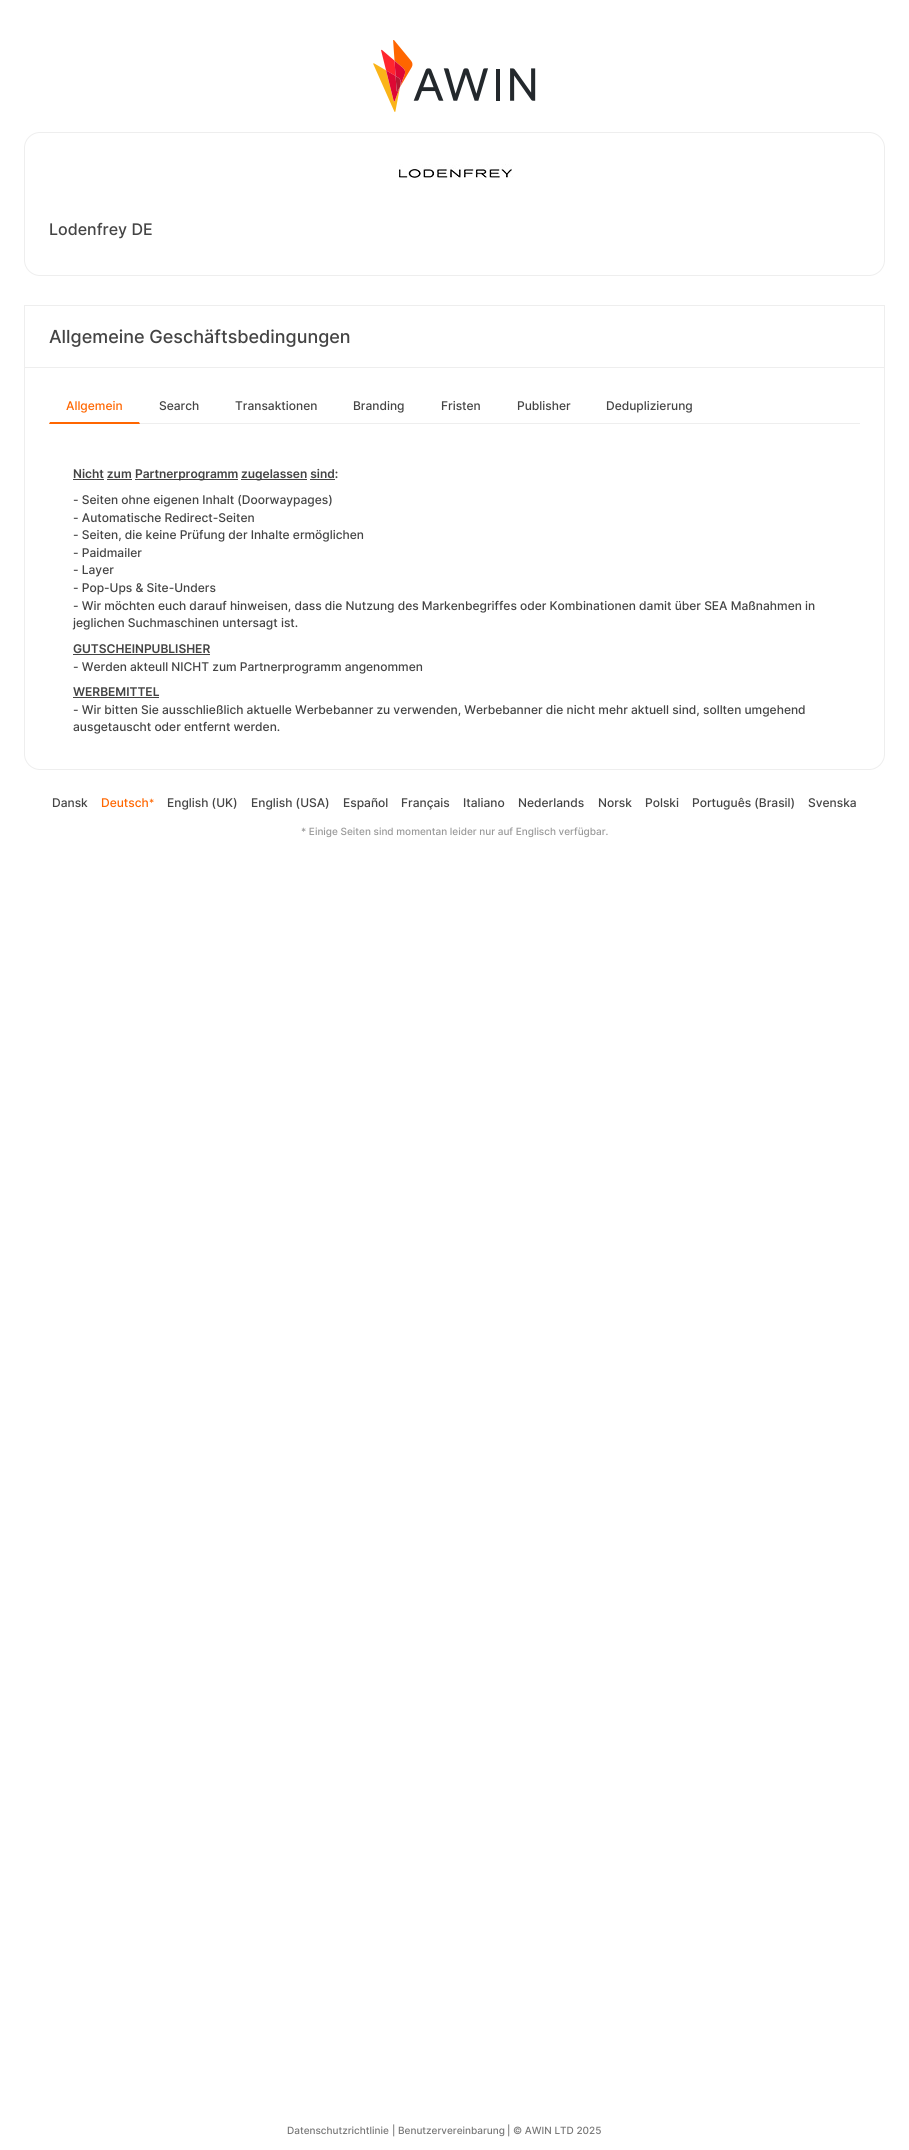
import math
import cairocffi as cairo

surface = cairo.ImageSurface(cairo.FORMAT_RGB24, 909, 2150)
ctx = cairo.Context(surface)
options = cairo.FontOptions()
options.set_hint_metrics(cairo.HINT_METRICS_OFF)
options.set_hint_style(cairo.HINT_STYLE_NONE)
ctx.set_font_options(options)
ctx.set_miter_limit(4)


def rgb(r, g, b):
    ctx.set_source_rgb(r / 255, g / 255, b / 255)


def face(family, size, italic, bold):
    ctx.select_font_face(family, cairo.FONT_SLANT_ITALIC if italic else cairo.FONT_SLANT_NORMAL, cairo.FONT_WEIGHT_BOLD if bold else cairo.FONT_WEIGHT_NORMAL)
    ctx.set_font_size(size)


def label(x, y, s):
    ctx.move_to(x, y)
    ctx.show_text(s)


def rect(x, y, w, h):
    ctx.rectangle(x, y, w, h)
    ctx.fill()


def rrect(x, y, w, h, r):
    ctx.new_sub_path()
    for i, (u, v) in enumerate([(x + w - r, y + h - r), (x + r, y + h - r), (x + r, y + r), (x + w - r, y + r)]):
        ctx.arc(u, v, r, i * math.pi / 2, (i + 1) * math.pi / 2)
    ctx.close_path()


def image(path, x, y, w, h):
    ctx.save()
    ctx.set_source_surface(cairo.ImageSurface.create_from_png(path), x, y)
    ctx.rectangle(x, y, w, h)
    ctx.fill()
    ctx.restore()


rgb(255, 255, 255)
ctx.paint()
image('image0.png', 373, 40, 163, 72)
rrect(24.5, 132.5, 860, 143, 15.5)
rgb(238, 238, 238)
ctx.set_line_width(1)
ctx.stroke()
image('image1.png', 399, 164, 114, 14)
face('Inter Medium', 16, 0, 0)
rgb(68, 68, 68)
label(49, 235, 'Lodenfrey DE')
ctx.new_path()
ctx.move_to(24.5, 305.5)
ctx.line_to(884.5, 305.5)
ctx.line_to(884.5, 754)
ctx.curve_to(884.5, 762.5, 877.5, 769.5, 869, 769.5)
ctx.line_to(40, 769.5)
ctx.curve_to(31.5, 769.5, 24.5, 762.5, 24.5, 754)
ctx.close_path()
rgb(238, 238, 238)
ctx.stroke()
rect(25, 367, 859, 1)
face('Inter Medium', 18, 0, 0)
rgb(68, 68, 68)
label(49, 343, 'Allgemeine Geschäftsbedingungen')
rgb(238, 238, 238)
rect(49, 423, 811, 1)
rgb(255, 102, 0)
ctx.new_path()
ctx.move_to(140, 424)
ctx.line_to(139, 422)
ctx.line_to(50, 422)
ctx.line_to(49, 424)
ctx.close_path()
ctx.fill()
face('Inter Medium', 12, 0, 0)
label(66, 410, 'Allgemein')
rgb(68, 68, 68)
label(159, 410, 'Search')
label(235, 410, 'Transaktionen')
label(353, 410, 'Branding')
label(441, 410, 'Fristen')
label(517, 410, 'Publisher')
label(606, 410, 'Deduplizierung')
face('Inter SemiBold', 12, 0, 0)
label(73, 478, 'Nicht zum')
rect(73, 479, 31, 1)
rect(107, 479, 25, 1)
rect(135, 479, 103, 1)
label(135, 478, 'Partnerprogramm')
rect(241, 479, 66, 1)
label(241, 478, 'zugelassen sind:')
rect(310, 479, 25, 1)
face('Inter Medium', 12, 0, 0)
label(73, 504, '- Seiten ohne eigenen Inhalt (Doorwaypages)')
label(73, 522, '- Automatische Redirect-Seiten')
label(73, 539, '- Seiten, die keine Prüfung der Inhalte ermöglichen')
label(73, 557, '- Paidmailer')
label(73, 574, '- Layer')
label(73, 592, '- Pop-Ups & Site-Unders')
label(73, 610, '- Wir möchten euch darauf hinweisen, dass die Nutzung des Markenbegriffes oder Kombinationen damit über SEA Maßnahmen in')
label(73, 627, 'jeglichen Suchmaschinen untersagt ist.')
face('Inter SemiBold', 12, 0, 0)
label(73, 653, 'GUTSCHEINPUBLISHER')
rect(73, 654, 137, 1)
face('Inter Medium', 12, 0, 0)
label(73, 671, '- Werden akteull NICHT zum Partnerprogramm angenommen')
face('Inter SemiBold', 12, 0, 0)
label(73, 696, 'WERBEMITTEL')
rect(73, 697, 86, 1)
face('Inter Medium', 12, 0, 0)
label(73, 714, '- Wir bitten Sie ausschließlich aktuelle Werbebanner zu verwenden, Werbebanner die nicht mehr aktuell sind, sollten umgehend')
label(73, 731, 'ausgetauscht oder entfernt werden.')
label(52, 807, 'Dansk')
rgb(255, 102, 0)
label(101, 807, 'Deutsch')
face('Inter Medium', 10, 0, 0)
label(149, 806, '*')
face('Inter Medium', 12, 0, 0)
rgb(68, 68, 68)
label(167, 807, 'English (UK)')
label(251, 807, 'English (USA)')
label(343, 807, 'Español')
label(401, 807, 'Français')
label(463, 807, 'Italiano')
label(518, 807, 'Nederlands')
label(598, 807, 'Norsk')
label(645, 807, 'Polski')
label(692, 807, 'Português (Brasil)')
label(808, 807, 'Svenska')
face('Inter Medium', 10, 0, 0)
rgb(153, 153, 153)
label(301, 835, '* Einige Seiten sind momentan leider nur auf Englisch verfügbar.')
rgb(119, 119, 119)
label(287, 2134, 'Datenschutzrichtlinie')
label(392, 2134, '|')
label(398, 2134, 'Benutzervereinbarung')
label(507, 2134, '|')
label(513, 2134, '© AWIN LTD 2025')
surface.write_to_png('render.png')
